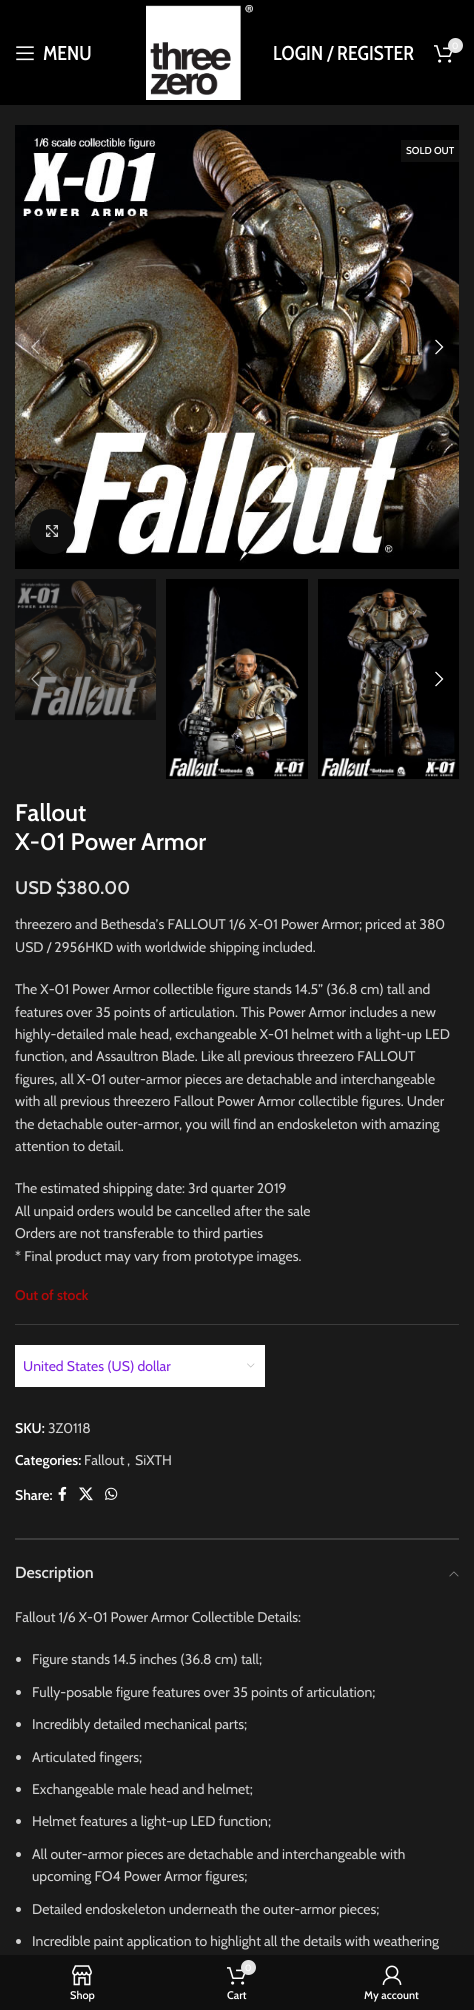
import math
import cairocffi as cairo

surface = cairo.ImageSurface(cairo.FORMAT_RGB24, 474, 2010)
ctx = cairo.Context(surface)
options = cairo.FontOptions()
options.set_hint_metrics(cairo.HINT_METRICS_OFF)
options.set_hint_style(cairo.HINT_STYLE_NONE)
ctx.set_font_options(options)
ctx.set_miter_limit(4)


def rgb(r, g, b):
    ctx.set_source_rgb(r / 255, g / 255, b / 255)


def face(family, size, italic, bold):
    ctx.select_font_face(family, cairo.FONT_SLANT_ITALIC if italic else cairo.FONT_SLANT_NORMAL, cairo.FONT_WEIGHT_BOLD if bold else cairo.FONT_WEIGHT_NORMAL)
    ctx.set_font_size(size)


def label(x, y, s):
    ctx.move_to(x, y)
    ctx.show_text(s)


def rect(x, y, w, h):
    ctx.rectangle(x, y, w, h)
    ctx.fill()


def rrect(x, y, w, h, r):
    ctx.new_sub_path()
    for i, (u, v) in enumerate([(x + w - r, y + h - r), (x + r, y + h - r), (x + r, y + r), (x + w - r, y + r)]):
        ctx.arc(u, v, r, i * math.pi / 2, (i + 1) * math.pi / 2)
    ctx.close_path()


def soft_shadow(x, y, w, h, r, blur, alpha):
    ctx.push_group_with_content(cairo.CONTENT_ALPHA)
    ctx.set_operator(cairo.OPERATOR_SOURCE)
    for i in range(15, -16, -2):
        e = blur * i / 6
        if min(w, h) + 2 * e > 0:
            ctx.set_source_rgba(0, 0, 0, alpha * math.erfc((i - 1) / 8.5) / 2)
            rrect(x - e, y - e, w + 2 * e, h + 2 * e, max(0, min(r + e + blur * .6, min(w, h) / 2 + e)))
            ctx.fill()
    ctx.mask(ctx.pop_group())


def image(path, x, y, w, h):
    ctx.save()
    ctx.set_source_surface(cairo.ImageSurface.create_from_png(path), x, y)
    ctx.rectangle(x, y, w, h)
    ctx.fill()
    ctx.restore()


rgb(0, 0, 0)
ctx.paint()
image('image0.png', 16, 46, 18, 15)
face('Cabin Condensed Medium', 20, 0, 0)
rgb(255, 255, 255)
label(43, 60, 'MENU')
image('image1.png', 146, 5, 107, 95)
label(273, 60, 'LOGIN / REGISTER')
image('image2.png', 434, 45, 19, 18)
rgb(226, 226, 226)
ctx.arc(455.5, 45.5, 7.5, 0, 2 * math.pi)
ctx.fill()
face('Cabin', 9, 0, 0)
rgb(255, 255, 255)
label(452, 49, '0')
rgb(26, 26, 26)
rect(0, 105, 474, 1850)
image('image3.png', 15, 125, 444, 444)
rgb(15, 15, 15)
rect(401, 140, 58, 22)
face('Cabin SemiBold', 10, 0, 0)
rgb(255, 255, 255)
label(406, 154, 'SOLD OUT')
image('image4.png', 31, 339, 9, 16)
image('image5.png', 435, 339, 9, 16)
rgb(0, 0, 0)
soft_shadow(30, 509, 45, 45, 22.5, 2.5, 0.08)
rgb(15, 15, 15)
ctx.arc(52.5, 531.5, 22.5, 0, 2 * math.pi)
ctx.fill()
image('image6.png', 46, 525, 12, 12)
image('image7.png', 15, 579, 141, 141)
image('image8.png', 166, 579, 142, 200)
image('image9.png', 318, 579, 141, 200)
image('image10.png', 31, 671, 9, 16)
image('image11.png', 435, 671, 9, 16)
face('Cabin SemiBold', 24, 0, 0)
rgb(255, 255, 255)
label(15, 821, 'Fallout')
label(15, 850, 'X-01 Power Armor')
face('Cabin SemiBold', 18.25, 0, 0)
rgb(226, 226, 226)
label(15, 894, 'USD $380.00')
face('Cabin', 14, 0, 0)
rgb(209, 209, 209)
label(15, 929, 'threezero and Bethesda’s FALLOUT 1/6 X-01 Power Armor; priced at 380')
label(15, 952, 'USD / 2956HKD with worldwide shipping included.')
label(15, 994, 'The X-01 Power Armor collectible figure stands 14.5” (36.8 cm) tall and')
label(15, 1017, 'features over 35 points of articulation. This Power Armor includes a new')
label(15, 1039, 'highly-detailed male head, exchangeable X-01 helmet with a light-up LED')
label(15, 1061, 'function, and Assaultron Blade. Like all previous threezero FALLOUT')
label(15, 1084, 'figures, all X-01 outer-armor pieces are detachable and interchangeable')
label(15, 1106, 'with all previous threezero Fallout Power Armor collectible figures. Under')
label(15, 1129, 'the detachable outer-armor, you will find an endoskeleton with amazing')
label(15, 1151, 'attention to detail.')
label(15, 1193, 'The estimated shipping date: 3rd quarter 2019')
label(15, 1216, 'All unpaid orders would be cancelled after the sale')
label(15, 1238, 'Orders are not transferable to third parties')
label(15, 1261, '* Final product may vary from prototype images.')
face('Cabin SemiBold', 14, 0, 0)
rgb(181, 8, 8)
label(15, 1300, 'Out of stock')
rgb(60, 60, 60)
rect(15, 1324, 444, 1)
rgb(255, 255, 255)
rect(15, 1345, 250, 42)
face('Cabin', 14, 0, 0)
rgb(130, 36, 227)
label(23, 1371, 'United States (US) dollar')
image('image12.png', 247, 1363, 8, 5)
face('Cabin SemiBold', 14, 0, 0)
rgb(255, 255, 255)
label(15, 1433, 'SKU:')
face('Cabin', 14, 0, 0)
rgb(209, 209, 209)
label(48, 1433, '3Z0118')
face('Cabin SemiBold', 14, 0, 0)
rgb(255, 255, 255)
label(15, 1465, 'Categories:')
face('Cabin', 14, 0, 0)
rgb(209, 209, 209)
label(84, 1465, 'Fallout')
label(127, 1465, ',')
label(135, 1465, 'SiXTH')
face('Cabin SemiBold', 14, 0, 0)
rgb(255, 255, 255)
label(15, 1500, 'Share:')
image('image13.png', 58, 1486, 9, 15)
image('image14.png', 79, 1487, 14, 14)
image('image15.png', 105, 1487, 13, 13)
rgb(60, 60, 60)
rect(15, 1538, 444, 2)
face('Cabin SemiBold', 16, 0, 0)
rgb(226, 226, 226)
label(15, 1578, 'Description')
image('image16.png', 449, 1571, 10, 6)
face('Cabin', 14, 0, 0)
rgb(209, 209, 209)
label(15, 1622, 'Fallout 1/6 X-01 Power Armor Collectible Details:')
ctx.new_path()
ctx.arc(18.5, 1659.5, 2.5, 0, 2 * math.pi)
ctx.fill()
label(32, 1664, 'Figure stands 14.5 inches (36.8 cm) tall;')
ctx.new_path()
ctx.arc(18.5, 1692.5, 2.5, 0, 2 * math.pi)
ctx.fill()
label(32, 1697, 'Fully-posable figure features over 35 points of articulation;')
ctx.new_path()
ctx.arc(18.5, 1724.5, 2.5, 0, 2 * math.pi)
ctx.fill()
label(32, 1729, 'Incredibly detailed mechanical parts;')
ctx.new_path()
ctx.arc(18.5, 1757.5, 2.5, 0, 2 * math.pi)
ctx.fill()
label(32, 1762, 'Articulated fingers;')
ctx.new_path()
ctx.arc(18.5, 1789.5, 2.5, 0, 2 * math.pi)
ctx.fill()
label(32, 1794, 'Exchangeable male head and helmet;')
ctx.new_path()
ctx.arc(18.5, 1821.5, 2.5, 0, 2 * math.pi)
ctx.fill()
label(32, 1826, 'Helmet features a light-up LED function;')
ctx.new_path()
ctx.arc(18.5, 1854.5, 2.5, 0, 2 * math.pi)
ctx.fill()
label(32, 1859, 'All outer-armor pieces are detachable and interchangeable with')
label(32, 1881, 'upcoming FO4 Power Armor figures;')
ctx.new_path()
ctx.arc(18.5, 1909.5, 2.5, 0, 2 * math.pi)
ctx.fill()
label(32, 1914, 'Detailed endoskeleton underneath the outer-armor pieces;')
ctx.new_path()
ctx.arc(18.5, 1941.5, 2.5, 0, 2 * math.pi)
ctx.fill()
label(32, 1946, 'Incredible paint application to highlight all the details with weathering')
rgb(15, 15, 15)
rect(0, 1955, 474, 55)
image('image17.png', 72, 1965, 20, 21)
face('Cabin SemiBold', 11, 0, 0)
rgb(255, 255, 255)
label(70, 1999, 'Shop')
image('image18.png', 227, 1967, 19, 18)
rgb(226, 226, 226)
ctx.arc(248.5, 1967.5, 7.5, 0, 2 * math.pi)
ctx.fill()
face('Cabin', 9, 0, 0)
rgb(255, 255, 255)
label(245, 1971, '0')
face('Cabin SemiBold', 11, 0, 0)
label(227, 1999, 'Cart')
image('image19.png', 382, 1965, 20, 20)
label(364, 1999, 'My account')
surface.write_to_png('render.png')
